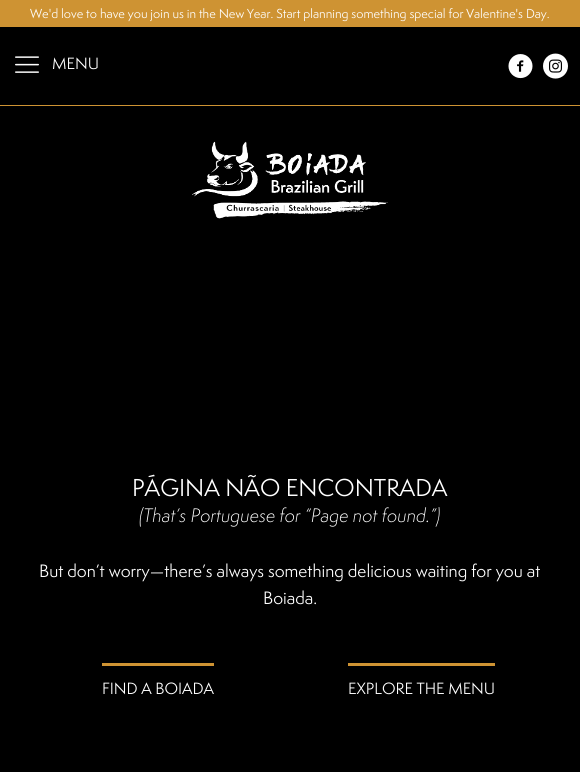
import math
import cairocffi as cairo

surface = cairo.ImageSurface(cairo.FORMAT_RGB24, 580, 772)
ctx = cairo.Context(surface)
options = cairo.FontOptions()
options.set_hint_metrics(cairo.HINT_METRICS_OFF)
options.set_hint_style(cairo.HINT_STYLE_NONE)
ctx.set_font_options(options)
ctx.set_miter_limit(4)


def rgb(r, g, b):
    ctx.set_source_rgb(r / 255, g / 255, b / 255)


def face(family, size, italic, bold):
    ctx.select_font_face(family, cairo.FONT_SLANT_ITALIC if italic else cairo.FONT_SLANT_NORMAL, cairo.FONT_WEIGHT_BOLD if bold else cairo.FONT_WEIGHT_NORMAL)
    ctx.set_font_size(size)


def label(x, y, s):
    ctx.move_to(x, y)
    ctx.show_text(s)


def rect(x, y, w, h):
    ctx.rectangle(x, y, w, h)
    ctx.fill()


def image(path, x, y, w, h):
    ctx.save()
    ctx.set_source_surface(cairo.ImageSurface.create_from_png(path), x, y)
    ctx.rectangle(x, y, w, h)
    ctx.fill()
    ctx.restore()


rgb(206, 147, 51)
ctx.paint()
face('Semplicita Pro', 12, 0, 0)
rgb(255, 255, 255)
label(30, 18, 'We\'d love to have you join us in the New Year. Start planning something special for Valentine\'s Day.')
rgb(0, 0, 0)
rect(0, 27, 580, 745)
rgb(206, 147, 51)
rect(0, 105, 580, 1)
image('image0.png', 15, 56, 24, 17)
face('Semplicita Pro', 15, 0, 0)
rgb(255, 255, 255)
label(52, 69, 'MENU')
image('image1.png', 508, 54, 25, 25)
image('image2.png', 543, 53, 25, 26)
image('image3.png', 192, 141, 196, 78)
face('Semplicita Pro', 22.5, 0, 0)
label(132, 496, 'PÁGINA NÃO ENCONTRADA')
face('Semplicita Pro Light', 18, 1, 0)
label(139, 522, '(That’s Portuguese for “Page not found.”)')
face('Semplicita Pro', 16.5, 0, 0)
label(39, 577, 'But don’t worry—there’s always something delicious waiting for you at')
label(263, 604, 'Boiada.')
rgb(206, 147, 51)
rect(102, 663, 112, 3)
face('Semplicita Pro', 15, 0, 0)
rgb(255, 255, 255)
label(102, 694, 'FIND A BOIADA')
rgb(206, 147, 51)
rect(348, 663, 147, 3)
rgb(255, 255, 255)
label(348, 694, 'EXPLORE THE MENU')
surface.write_to_png('render.png')
